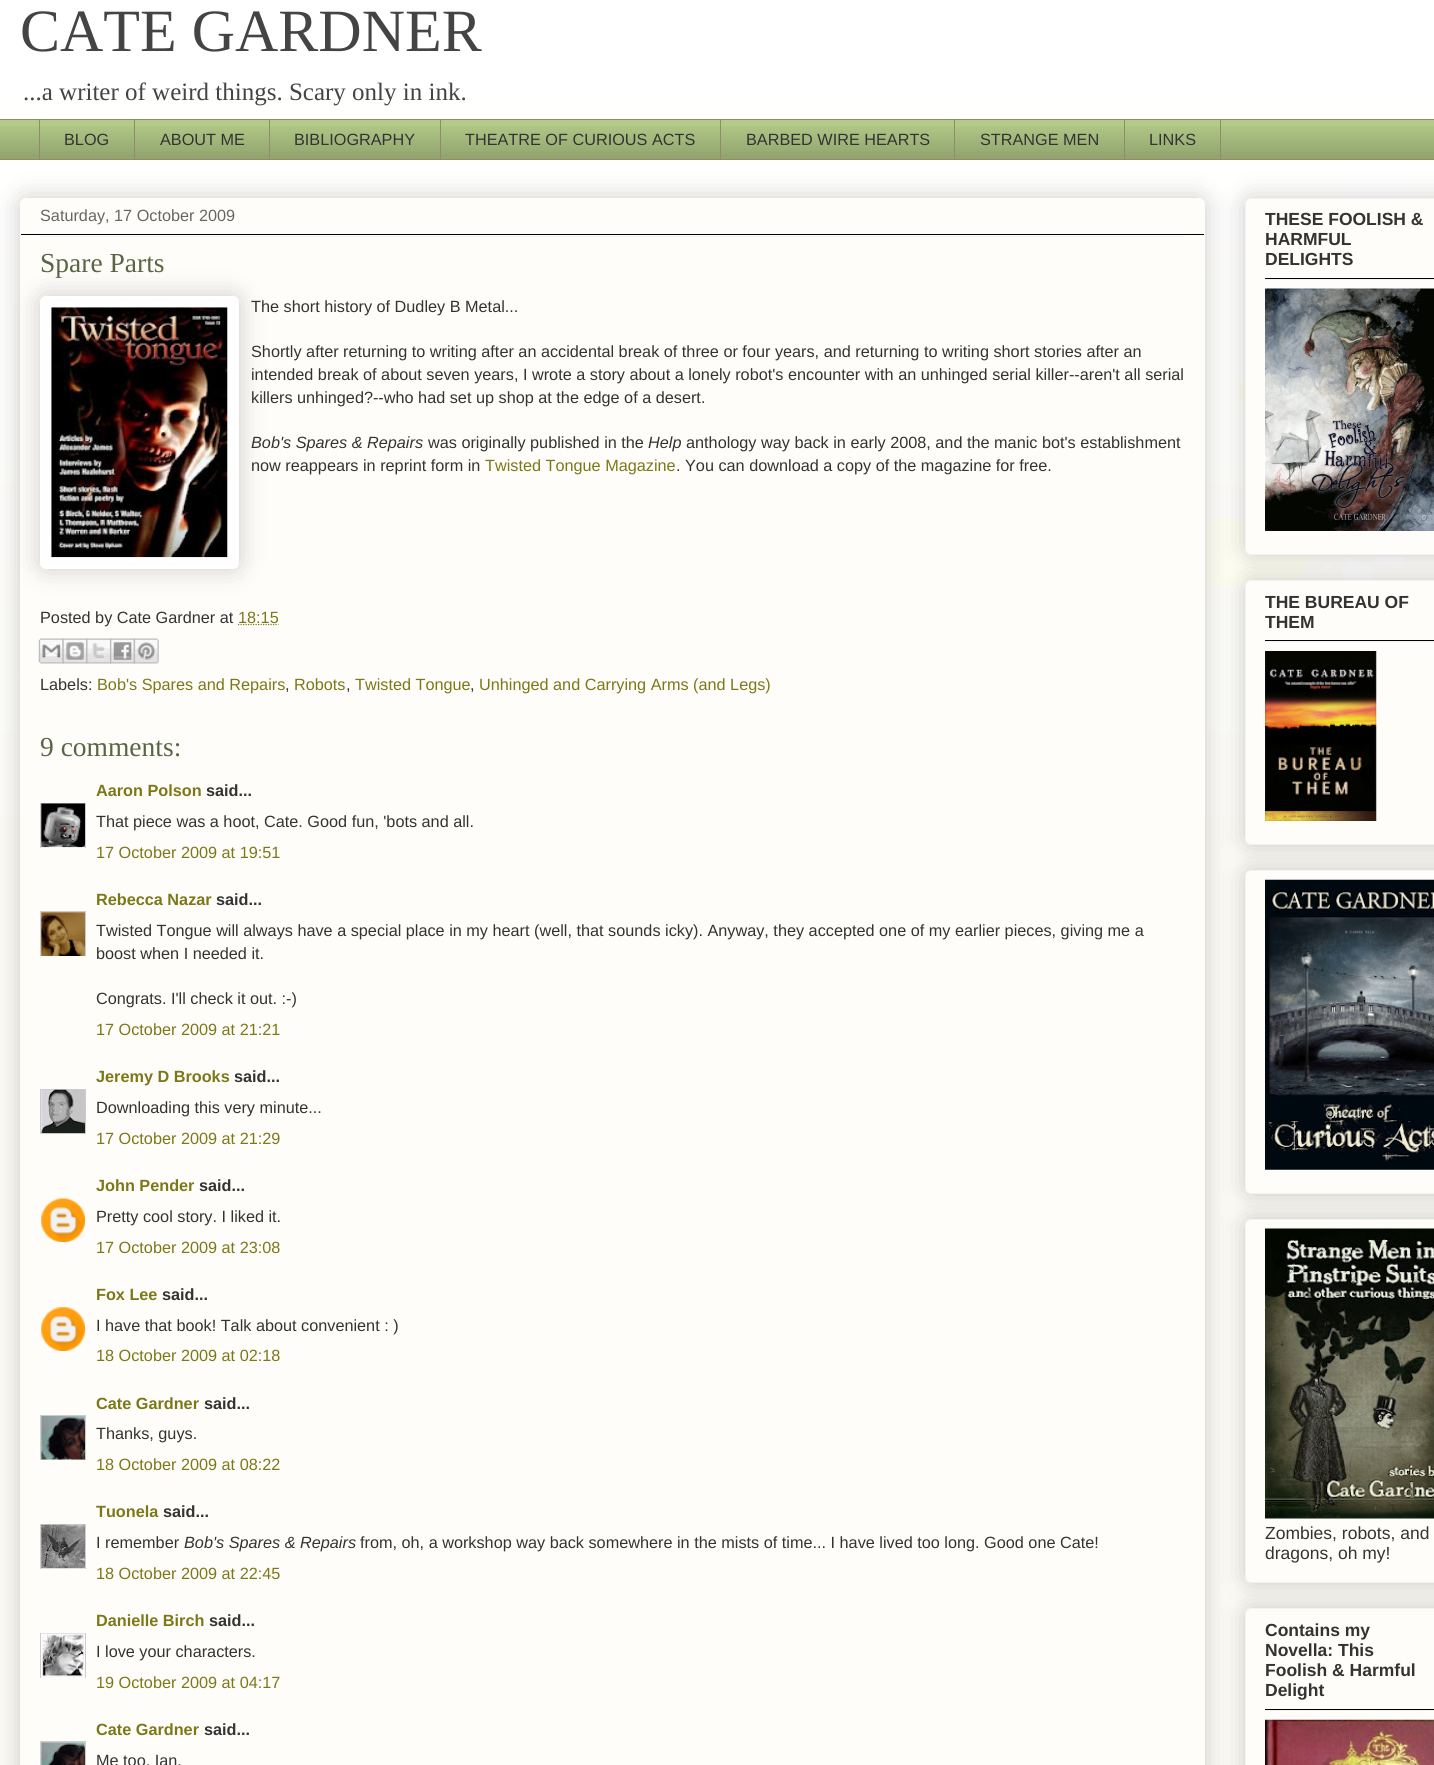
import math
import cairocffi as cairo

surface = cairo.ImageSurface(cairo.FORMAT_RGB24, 1434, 1765)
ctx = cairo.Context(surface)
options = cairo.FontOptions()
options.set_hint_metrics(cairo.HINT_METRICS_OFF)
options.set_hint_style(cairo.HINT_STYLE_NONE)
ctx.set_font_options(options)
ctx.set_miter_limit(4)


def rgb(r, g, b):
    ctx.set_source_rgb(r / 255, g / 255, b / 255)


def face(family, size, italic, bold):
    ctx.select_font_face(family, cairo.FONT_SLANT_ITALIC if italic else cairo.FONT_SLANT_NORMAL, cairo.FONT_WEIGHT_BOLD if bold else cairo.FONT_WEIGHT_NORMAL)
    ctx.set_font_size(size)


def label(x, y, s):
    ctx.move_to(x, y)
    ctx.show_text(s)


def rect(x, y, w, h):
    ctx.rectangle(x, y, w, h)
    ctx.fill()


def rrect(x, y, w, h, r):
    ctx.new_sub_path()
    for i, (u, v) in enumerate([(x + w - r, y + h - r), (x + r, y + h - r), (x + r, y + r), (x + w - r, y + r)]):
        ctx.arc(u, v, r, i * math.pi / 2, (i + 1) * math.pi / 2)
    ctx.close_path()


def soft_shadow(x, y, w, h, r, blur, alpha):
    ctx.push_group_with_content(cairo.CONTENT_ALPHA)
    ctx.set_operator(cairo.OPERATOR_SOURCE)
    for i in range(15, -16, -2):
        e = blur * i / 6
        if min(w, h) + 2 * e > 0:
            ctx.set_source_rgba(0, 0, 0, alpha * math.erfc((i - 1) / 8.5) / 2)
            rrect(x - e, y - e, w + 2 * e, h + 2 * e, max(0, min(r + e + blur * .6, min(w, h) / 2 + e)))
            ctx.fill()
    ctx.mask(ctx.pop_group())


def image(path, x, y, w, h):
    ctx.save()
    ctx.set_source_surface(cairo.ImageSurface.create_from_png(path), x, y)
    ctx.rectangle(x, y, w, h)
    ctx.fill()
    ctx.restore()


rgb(252, 251, 245)
ctx.paint()
image('image0.png', 0, 0, 1434, 815)
face('Liberation Serif', 60, 0, 0)
rgb(68, 68, 68)
label(20, 51, 'CATE GARDNER')
face('Liberation Serif', 25, 0, 0)
label(23, 100, '...a writer of weird things. Scary only in ink.')
rgb(179, 202, 136)
rect(0, 120, 1434, 39)
image('image1.png', 0, 126, 1434, 33)
rgb(144, 140, 106)
rect(0, 119, 1434, 1)
rect(39, 119, 1, 41)
face('Liberation Sans', 16.25, 0, 0)
rgb(51, 51, 51)
label(64, 145, 'BLOG')
rgb(144, 140, 106)
rect(134, 119, 1, 41)
rgb(51, 51, 51)
label(160, 145, 'ABOUT ME')
rgb(144, 140, 106)
rect(269, 119, 1, 41)
rgb(51, 51, 51)
label(294, 145, 'BIBLIOGRAPHY')
rgb(144, 140, 106)
rect(440, 119, 1, 41)
rgb(51, 51, 51)
label(465, 145, 'THEATRE OF CURIOUS ACTS')
rgb(144, 140, 106)
rect(720, 119, 1, 41)
rgb(51, 51, 51)
label(746, 145, 'BARBED WIRE HEARTS')
rgb(144, 140, 106)
rect(954, 119, 1, 41)
rgb(51, 51, 51)
label(980, 145, 'STRANGE MEN')
ctx.rectangle(1124.5, 119.5, 96, 40)
rgb(144, 140, 106)
ctx.set_line_width(1)
ctx.stroke()
rgb(51, 51, 51)
label(1149, 145, 'LINKS')
rgb(144, 140, 106)
rect(0, 159, 1434, 1)
rgb(0, 0, 0)
soft_shadow(20, 198, 1185, 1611, 6, 12.5, 0.2)
rgb(254, 253, 250)
rrect(20, 198, 1185, 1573, 6)
ctx.fill()
rgb(0, 0, 0)
rect(21, 234, 1183, 1)
rgb(102, 102, 102)
label(40, 221, 'Saturday, 17 October 2009')
rgb(243, 243, 243)
rect(40, 236, 1145, 1)
face('Liberation Serif', 27.5, 0, 0)
rgb(89, 101, 68)
label(40, 272, 'Spare Parts')
rgb(0, 0, 0)
soft_shadow(40, 296, 199, 273, 6, 12.5, 0.2)
rgb(255, 255, 255)
rrect(40, 296, 199, 273, 6)
ctx.fill()
image('image2.png', 51, 307, 177, 251)
face('Liberation Sans', 16.25, 0, 0)
rgb(51, 51, 51)
label(251, 312, 'The short history of Dudley B Metal...')
label(251, 357, 'Shortly after returning to writing after an accidental break of three or four years, and returning to writing short stories after an')
label(251, 380, 'intended break of about seven years, I wrote a story about a lonely robot\'s encounter with an unhinged serial killer--aren\'t all serial')
label(251, 403, 'killers unhinged?--who had set up shop at the edge of a desert.')
face('Liberation Sans', 16.25, 1, 0)
label(251, 448, 'Bob\'s Spares & Repairs')
face('Liberation Sans', 16.25, 0, 0)
label(428, 448, 'was originally published in the')
face('Liberation Sans', 16.25, 1, 0)
label(648, 448, 'Help')
face('Liberation Sans', 16.25, 0, 0)
label(686, 448, 'anthology way back in early 2008, and the manic bot\'s establishment')
label(251, 471, 'now reappears in reprint form in')
rgb(125, 119, 23)
label(485, 471, 'Twisted Tongue Magazine')
rgb(51, 51, 51)
label(676, 471, '. You can download a copy of the magazine for free.')
label(40, 623, 'Posted by Cate Gardner at')
ctx.new_path()
ctx.move_to(238, 624.5)
ctx.line_to(278.5, 624.5)
rgb(125, 119, 23)
ctx.set_line_width(1.2)
ctx.set_dash([1.25, 1.25])
ctx.stroke()
label(238, 623, '18:15')
image('image3.png', 38, 638, 26, 26)
image('image4.png', 62, 638, 26, 26)
image('image5.png', 86, 638, 26, 26)
image('image6.png', 110, 638, 25, 26)
image('image7.png', 133, 638, 26, 26)
rgb(51, 51, 51)
label(40, 690, 'Labels:')
rgb(125, 119, 23)
label(97, 690, 'Bob\'s Spares and Repairs')
rgb(51, 51, 51)
label(285, 690, ',')
rgb(125, 119, 23)
label(294, 690, 'Robots')
rgb(51, 51, 51)
label(346, 690, ',')
rgb(125, 119, 23)
label(355, 690, 'Twisted Tongue')
rgb(51, 51, 51)
label(470, 690, ',')
rgb(125, 119, 23)
label(479, 690, 'Unhinged and Carrying Arms (and Legs)')
face('Liberation Serif', 27.5, 0, 0)
rgb(89, 101, 68)
label(40, 756, '9 comments:')
face('Liberation Sans', 16.25, 0, 1)
rgb(125, 119, 23)
label(96, 796, 'Aaron Polson')
rgb(51, 51, 51)
label(206, 796, 'said...')
ctx.save()
ctx.rectangle(40, 803, 46, 45)
ctx.clip()
ctx.rectangle(40.5, 803.5, 45, 45)
rgb(204, 204, 204)
ctx.set_line_width(1)
ctx.set_dash([])
ctx.stroke()
ctx.restore()
image('image8.png', 41, 803, 44, 45)
face('Liberation Sans', 16.25, 0, 0)
label(96, 827, 'That piece was a hoot, Cate. Good fun, \'bots and all.')
rgb(125, 119, 23)
label(96, 858, '17 October 2009 at 19:51')
face('Liberation Sans', 16.25, 0, 1)
label(96, 905, 'Rebecca Nazar')
rgb(51, 51, 51)
label(216, 905, 'said...')
ctx.save()
ctx.rectangle(40, 911, 46, 45)
ctx.clip()
ctx.rectangle(40.5, 911.5, 45, 46)
rgb(204, 204, 204)
ctx.set_line_width(1)
ctx.set_dash([])
ctx.stroke()
ctx.restore()
image('image9.png', 41, 912, 44, 44)
face('Liberation Sans', 16.25, 0, 0)
label(96, 936, 'Twisted Tongue will always have a special place in my heart (well, that sounds icky). Anyway, they accepted one of my earlier pieces, giving me a')
label(96, 959, 'boost when I needed it.')
label(96, 1004, 'Congrats. I\'ll check it out. :-)')
rgb(125, 119, 23)
label(96, 1035, '17 October 2009 at 21:21')
face('Liberation Sans', 16.25, 0, 1)
label(96, 1082, 'Jeremy D Brooks')
rgb(51, 51, 51)
label(234, 1082, 'said...')
ctx.save()
ctx.rectangle(40, 1089, 46, 45)
ctx.clip()
ctx.rectangle(40.5, 1089.5, 45, 45)
rgb(204, 204, 204)
ctx.set_line_width(1)
ctx.set_dash([])
ctx.stroke()
ctx.restore()
image('image10.png', 41, 1089, 44, 45)
face('Liberation Sans', 16.25, 0, 0)
label(96, 1113, 'Downloading this very minute...')
rgb(125, 119, 23)
label(96, 1144, '17 October 2009 at 21:29')
face('Liberation Sans', 16.25, 0, 1)
label(96, 1191, 'John Pender')
rgb(51, 51, 51)
label(199, 1191, 'said...')
image('image11.png', 41, 1198, 44, 45)
face('Liberation Sans', 16.25, 0, 0)
label(96, 1222, 'Pretty cool story. I liked it.')
rgb(125, 119, 23)
label(96, 1253, '17 October 2009 at 23:08')
face('Liberation Sans', 16.25, 0, 1)
label(96, 1300, 'Fox Lee')
rgb(51, 51, 51)
label(162, 1300, 'said...')
image('image12.png', 41, 1307, 44, 44)
face('Liberation Sans', 16.25, 0, 0)
label(96, 1331, 'I have that book! Talk about convenient : )')
rgb(125, 119, 23)
label(96, 1361, '18 October 2009 at 02:18')
face('Liberation Sans', 16.25, 0, 1)
label(96, 1409, 'Cate Gardner')
rgb(51, 51, 51)
label(204, 1409, 'said...')
ctx.save()
ctx.rectangle(40, 1415, 46, 45)
ctx.clip()
ctx.rectangle(40.5, 1415.5, 45, 45)
rgb(204, 204, 204)
ctx.set_line_width(1)
ctx.set_dash([])
ctx.stroke()
ctx.restore()
image('image13.png', 41, 1416, 44, 44)
face('Liberation Sans', 16.25, 0, 0)
label(96, 1439, 'Thanks, guys.')
rgb(125, 119, 23)
label(96, 1470, '18 October 2009 at 08:22')
face('Liberation Sans', 16.25, 0, 1)
label(96, 1517, 'Tuonela')
rgb(51, 51, 51)
label(163, 1517, 'said...')
ctx.save()
ctx.rectangle(40, 1524, 46, 45)
ctx.clip()
ctx.rectangle(40.5, 1524.5, 45, 45)
rgb(204, 204, 204)
ctx.set_line_width(1)
ctx.set_dash([])
ctx.stroke()
ctx.restore()
image('image14.png', 41, 1524, 44, 45)
face('Liberation Sans', 16.25, 0, 0)
label(96, 1548, 'I remember')
face('Liberation Sans', 16.25, 1, 0)
label(184, 1548, 'Bob\'s Spares & Repairs')
face('Liberation Sans', 16.25, 0, 0)
label(360, 1548, 'from, oh, a workshop way back somewhere in the mists of time... I have lived too long. Good one Cate!')
rgb(125, 119, 23)
label(96, 1579, '18 October 2009 at 22:45')
face('Liberation Sans', 16.25, 0, 1)
label(96, 1626, 'Danielle Birch')
rgb(51, 51, 51)
label(209, 1626, 'said...')
ctx.save()
ctx.rectangle(40, 1633, 46, 45)
ctx.clip()
ctx.rectangle(40.5, 1633.5, 45, 45)
rgb(204, 204, 204)
ctx.set_line_width(1)
ctx.set_dash([])
ctx.stroke()
ctx.restore()
image('image15.png', 41, 1633, 44, 44)
face('Liberation Sans', 16.25, 0, 0)
label(96, 1657, 'I love your characters.')
rgb(125, 119, 23)
label(96, 1688, '19 October 2009 at 04:17')
face('Liberation Sans', 16.25, 0, 1)
label(96, 1735, 'Cate Gardner')
rgb(51, 51, 51)
label(204, 1735, 'said...')
ctx.rectangle(40.5, 1741.5, 45, 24)
rgb(204, 204, 204)
ctx.set_line_width(1)
ctx.set_dash([])
ctx.stroke()
image('image16.png', 41, 1742, 44, 23)
face('Liberation Sans', 16.25, 0, 0)
rgb(51, 51, 51)
label(96, 1766, 'Me too, Ian.')
rgb(0, 0, 0)
soft_shadow(1245, 198, 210, 357, 6, 12.5, 0.2)
rgb(254, 253, 250)
rrect(1245.5, 198.5, 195, 356, 5.5)
ctx.fill_preserve()
rgb(243, 243, 243)
ctx.stroke()
rgb(0, 0, 0)
rect(1265, 278, 169, 1)
face('Liberation Sans', 17.5, 0, 1)
rgb(51, 51, 51)
label(1265, 225, 'THESE FOOLISH &')
label(1265, 245, 'HARMFUL')
label(1265, 265, 'DELIGHTS')
rgb(243, 243, 243)
rect(1265, 279, 169, 1)
image('image17.png', 1265, 288, 169, 243)
rgb(0, 0, 0)
soft_shadow(1245, 580, 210, 265, 6, 12.5, 0.2)
rgb(254, 253, 250)
rrect(1245.5, 580.5, 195, 264, 5.5)
ctx.fill_preserve()
rgb(243, 243, 243)
ctx.stroke()
rgb(0, 0, 0)
rect(1265, 640, 169, 1)
rgb(51, 51, 51)
label(1265, 608, 'THE BUREAU OF')
label(1265, 628, 'THEM')
rgb(243, 243, 243)
rect(1265, 641, 169, 1)
image('image18.png', 1265, 651, 112, 170)
rgb(0, 0, 0)
soft_shadow(1245, 870, 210, 324, 6, 12.5, 0.2)
rgb(254, 253, 250)
rrect(1245.5, 870.5, 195, 323, 5.5)
ctx.fill_preserve()
rgb(243, 243, 243)
ctx.stroke()
image('image19.png', 1265, 879, 169, 291)
rgb(0, 0, 0)
soft_shadow(1245, 1219, 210, 364, 6, 12.5, 0.2)
rgb(254, 253, 250)
rrect(1245.5, 1219.5, 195, 363, 5.5)
ctx.fill_preserve()
rgb(243, 243, 243)
ctx.stroke()
image('image20.png', 1265, 1228, 169, 291)
face('Liberation Sans', 17.5, 0, 0)
rgb(51, 51, 51)
label(1265, 1539, 'Zombies, robots, and')
label(1265, 1559, 'dragons, oh my!')
rgb(0, 0, 0)
soft_shadow(1245, 1608, 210, 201, 6, 12.5, 0.2)
rgb(254, 253, 250)
rrect(1245.5, 1608.5, 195, 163, 5.5)
ctx.fill_preserve()
rgb(243, 243, 243)
ctx.stroke()
rgb(0, 0, 0)
rect(1265, 1709, 169, 1)
face('Liberation Sans', 17.5, 0, 1)
rgb(51, 51, 51)
label(1265, 1636, 'Contains my')
label(1265, 1656, 'Novella: This')
label(1265, 1676, 'Foolish & Harmful')
label(1265, 1696, 'Delight')
rgb(243, 243, 243)
rect(1265, 1710, 169, 1)
image('image21.png', 1265, 1719, 169, 46)
surface.write_to_png('render.png')
